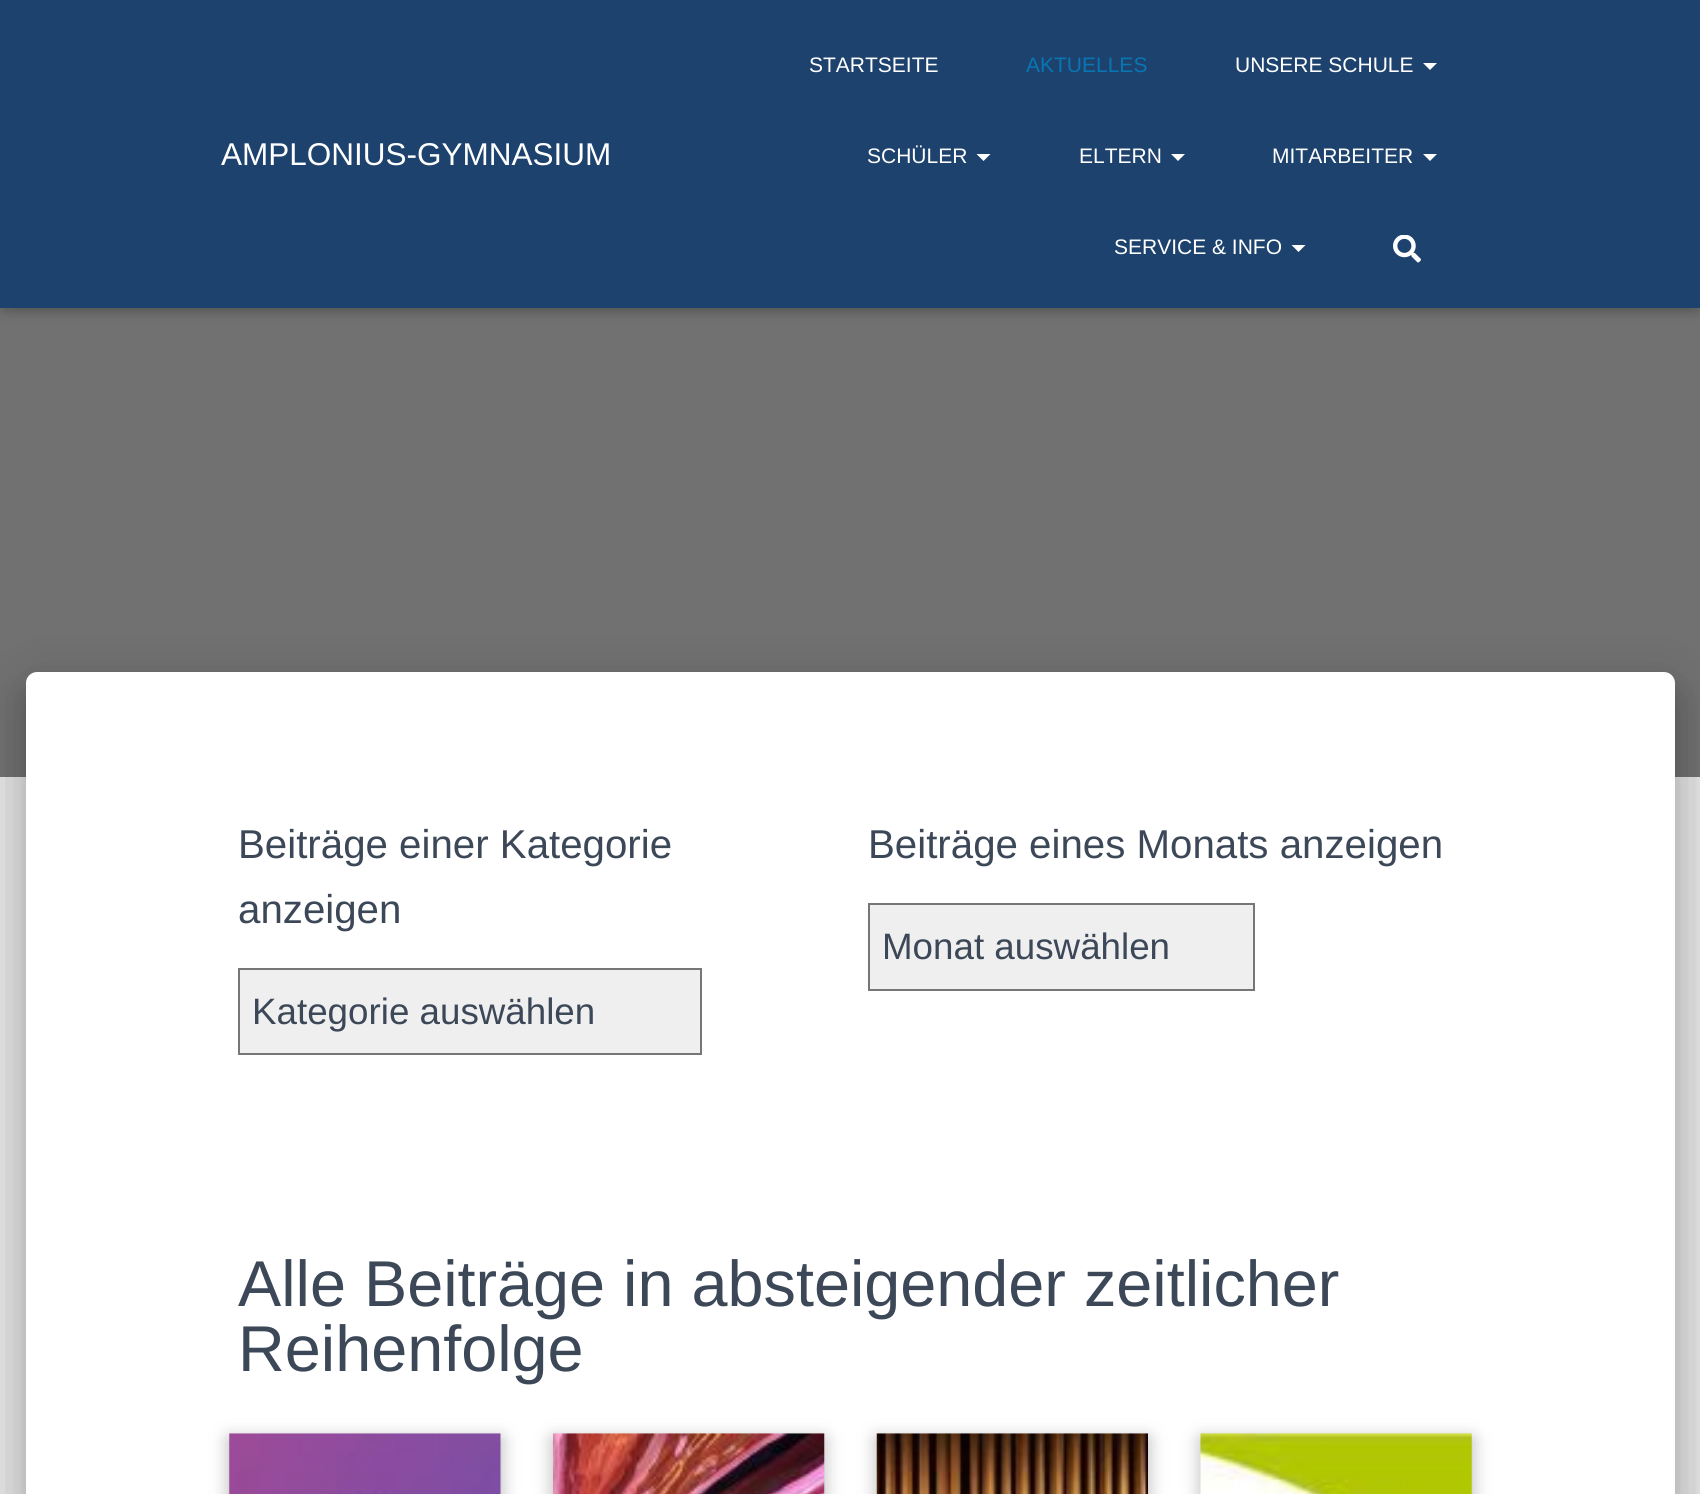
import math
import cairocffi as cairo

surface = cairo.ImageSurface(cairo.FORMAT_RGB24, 1700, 1494)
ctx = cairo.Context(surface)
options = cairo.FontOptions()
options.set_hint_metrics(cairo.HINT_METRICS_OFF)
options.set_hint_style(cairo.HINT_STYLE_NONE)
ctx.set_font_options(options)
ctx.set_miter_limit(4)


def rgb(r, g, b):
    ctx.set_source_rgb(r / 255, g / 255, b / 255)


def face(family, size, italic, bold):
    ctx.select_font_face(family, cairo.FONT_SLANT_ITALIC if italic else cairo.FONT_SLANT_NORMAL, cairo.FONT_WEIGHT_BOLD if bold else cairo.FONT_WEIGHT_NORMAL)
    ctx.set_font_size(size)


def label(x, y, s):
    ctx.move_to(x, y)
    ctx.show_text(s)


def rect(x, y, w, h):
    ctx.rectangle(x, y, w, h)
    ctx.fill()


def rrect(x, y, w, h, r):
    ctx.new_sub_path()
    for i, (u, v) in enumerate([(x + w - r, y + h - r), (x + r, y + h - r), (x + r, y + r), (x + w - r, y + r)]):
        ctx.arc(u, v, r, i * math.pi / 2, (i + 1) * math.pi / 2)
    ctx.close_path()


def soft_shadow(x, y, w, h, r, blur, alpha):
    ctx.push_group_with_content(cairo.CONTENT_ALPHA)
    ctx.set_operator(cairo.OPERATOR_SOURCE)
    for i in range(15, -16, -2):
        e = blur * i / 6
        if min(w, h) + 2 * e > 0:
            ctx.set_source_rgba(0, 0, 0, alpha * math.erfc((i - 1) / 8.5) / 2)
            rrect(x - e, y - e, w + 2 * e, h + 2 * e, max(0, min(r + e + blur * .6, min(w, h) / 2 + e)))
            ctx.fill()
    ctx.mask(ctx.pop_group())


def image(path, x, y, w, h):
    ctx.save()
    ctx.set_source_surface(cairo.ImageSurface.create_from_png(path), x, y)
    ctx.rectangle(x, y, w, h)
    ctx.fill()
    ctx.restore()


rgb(229, 229, 229)
ctx.paint()
rgb(113, 113, 113)
rect(0, 308, 1700, 469)
rgb(0, 0, 0)
soft_shadow(4, 11, 1694, 301, 0, 4.5, 0.1)
soft_shadow(0, 2, 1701, 308, 0, 9, 0.12)
soft_shadow(11, 12, 1680, 287, 0, 9, 0.42)
rgb(29, 66, 110)
rect(0, 0, 1700, 308)
face('Liberation Sans', 31.5, 0, 0)
rgb(255, 255, 255)
label(221, 165, 'AMPLONIUS-GYMNASIUM')
face('Liberation Sans', 21, 0, 0)
label(809, 72, 'STARTSEITE')
rgb(7, 118, 178)
label(1026, 72, 'AKTUELLES')
rgb(255, 255, 255)
label(1235, 72, 'UNSERE SCHULE')
ctx.new_path()
ctx.move_to(1423, 63)
ctx.line_to(1437, 63)
ctx.line_to(1430, 70)
ctx.close_path()
ctx.fill()
label(867, 163, 'SCHÜLER')
ctx.new_path()
ctx.move_to(976.5, 154)
ctx.line_to(990.5, 154)
ctx.line_to(983.5, 161)
ctx.close_path()
ctx.fill()
label(1079, 163, 'ELTERN')
ctx.new_path()
ctx.move_to(1171, 154)
ctx.line_to(1185, 154)
ctx.line_to(1178, 161)
ctx.close_path()
ctx.fill()
label(1272, 163, 'MITARBEITER')
ctx.new_path()
ctx.move_to(1423, 154)
ctx.line_to(1437, 154)
ctx.line_to(1430, 161)
ctx.close_path()
ctx.fill()
label(1114, 254, 'SERVICE & INFO')
ctx.new_path()
ctx.move_to(1291.5, 245)
ctx.line_to(1305.5, 245)
ctx.line_to(1298.5, 252)
ctx.close_path()
ctx.fill()
image('image0.png', 1393, 235, 28, 28)
rgb(0, 0, 0)
soft_shadow(35, 695, 1631, 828, 2, 9, 0.2)
soft_shadow(18, 674, 1666, 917, 19, 26, 0.12)
soft_shadow(23, 697, 1655, 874, 14, 21, 0.14)
rgb(255, 255, 255)
ctx.new_path()
ctx.move_to(37, 672)
ctx.line_to(1664, 672)
ctx.curve_to(1670, 672, 1675, 677, 1675, 683)
ctx.line_to(1675, 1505)
ctx.line_to(26, 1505)
ctx.line_to(26, 683)
ctx.curve_to(26, 677, 31, 672, 37, 672)
ctx.close_path()
ctx.fill()
face('Liberation Sans', 40.25, 0, 0)
rgb(60, 72, 88)
label(238, 858, 'Beiträge einer Kategorie')
label(238, 923, 'anzeigen')
rgb(239, 239, 239)
ctx.rectangle(239, 969, 462, 85)
ctx.fill_preserve()
rgb(118, 118, 118)
ctx.stroke()
face('Liberation Sans', 36.75, 0, 0)
rgb(60, 72, 88)
label(252, 1024, 'Kategorie auswählen')
face('Liberation Sans', 40.25, 0, 0)
label(868, 858, 'Beiträge eines Monats anzeigen')
rgb(239, 239, 239)
ctx.rectangle(869, 904, 385, 86)
ctx.fill_preserve()
rgb(118, 118, 118)
ctx.stroke()
face('Liberation Sans', 36.75, 0, 0)
rgb(60, 72, 88)
label(882, 959, 'Monat auswählen')
face('Liberation Sans', 64.75, 0, 0)
label(238, 1306, 'Alle Beiträge in absteigender zeitlicher')
label(238, 1371, 'Reihenfolge')
rgb(181, 181, 181)
soft_shadow(229, 1439, 272, 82, 0, 9, 1)
image('image1.png', 229, 1433, 272, 61)
soft_shadow(553, 1439, 271, 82, 0, 9, 1)
image('image2.png', 553, 1433, 272, 61)
soft_shadow(877, 1439, 271, 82, 0, 9, 1)
image('image3.png', 876, 1433, 272, 61)
soft_shadow(1201, 1439, 271, 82, 0, 9, 1)
image('image4.png', 1200, 1433, 272, 61)
surface.write_to_png('render.png')
